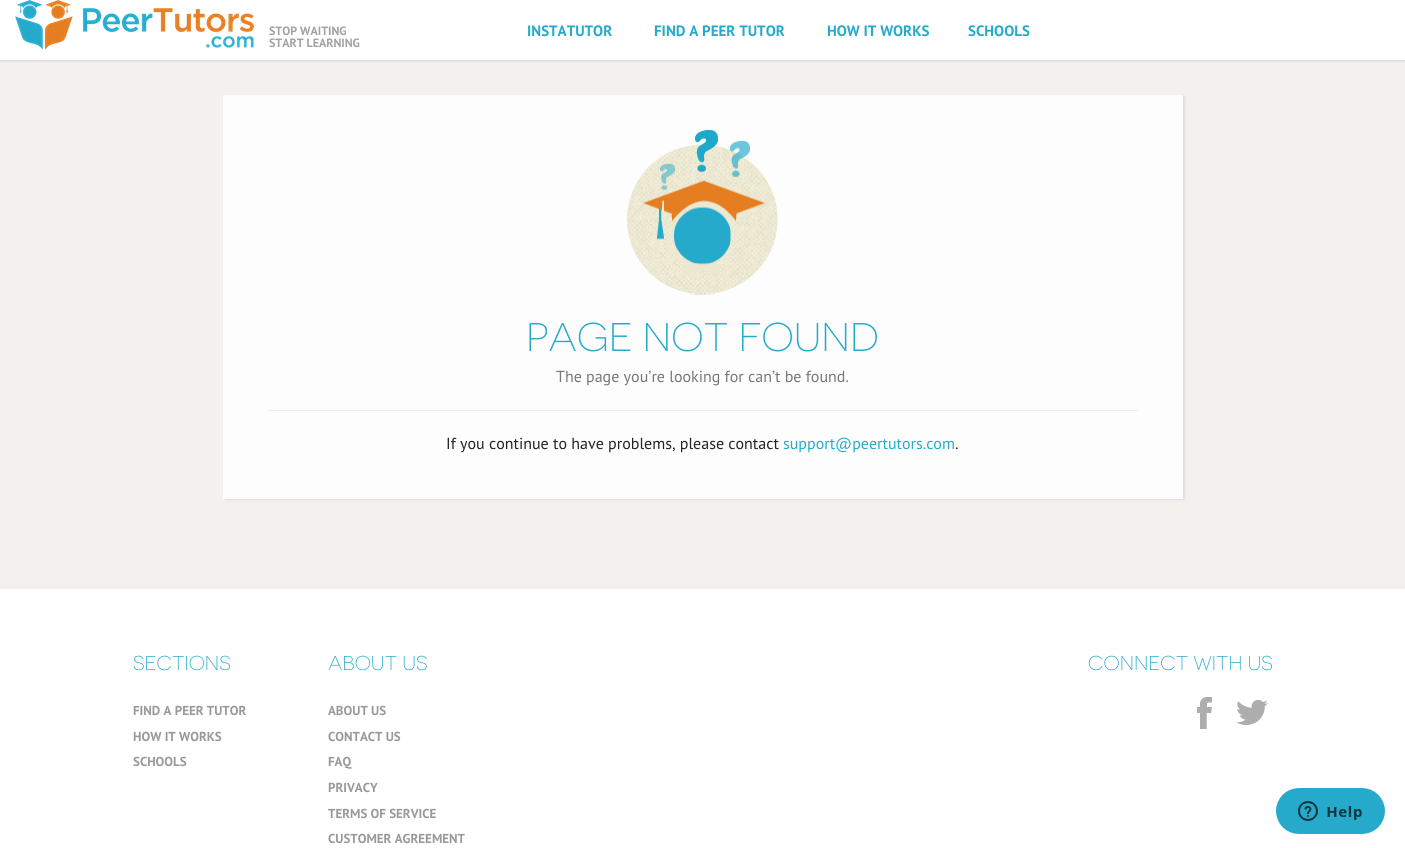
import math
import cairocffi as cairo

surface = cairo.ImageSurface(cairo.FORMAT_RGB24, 1405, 848)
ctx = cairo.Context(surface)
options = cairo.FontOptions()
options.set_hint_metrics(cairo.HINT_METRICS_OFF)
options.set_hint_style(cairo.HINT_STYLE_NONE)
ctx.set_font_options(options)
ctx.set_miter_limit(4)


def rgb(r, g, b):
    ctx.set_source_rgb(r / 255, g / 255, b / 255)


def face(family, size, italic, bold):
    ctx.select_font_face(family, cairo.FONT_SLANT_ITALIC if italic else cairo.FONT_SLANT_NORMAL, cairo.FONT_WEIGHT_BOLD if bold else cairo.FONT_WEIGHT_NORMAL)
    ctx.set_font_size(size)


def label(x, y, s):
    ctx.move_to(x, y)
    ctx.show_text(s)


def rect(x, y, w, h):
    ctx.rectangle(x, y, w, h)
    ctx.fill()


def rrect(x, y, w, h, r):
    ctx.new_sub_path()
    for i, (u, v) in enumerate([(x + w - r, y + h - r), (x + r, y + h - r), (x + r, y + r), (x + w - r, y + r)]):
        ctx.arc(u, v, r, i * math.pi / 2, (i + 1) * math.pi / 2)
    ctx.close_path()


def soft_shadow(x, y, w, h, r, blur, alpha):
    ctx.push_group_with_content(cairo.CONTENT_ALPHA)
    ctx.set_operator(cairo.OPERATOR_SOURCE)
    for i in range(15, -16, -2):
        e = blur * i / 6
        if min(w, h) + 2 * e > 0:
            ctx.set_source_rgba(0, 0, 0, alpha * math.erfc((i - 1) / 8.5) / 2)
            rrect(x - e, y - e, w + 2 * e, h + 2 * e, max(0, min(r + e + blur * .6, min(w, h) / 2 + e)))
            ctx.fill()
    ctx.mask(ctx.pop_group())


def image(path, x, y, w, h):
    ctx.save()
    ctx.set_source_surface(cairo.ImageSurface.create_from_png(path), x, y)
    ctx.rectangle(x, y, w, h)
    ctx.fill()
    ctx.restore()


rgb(255, 255, 255)
ctx.paint()
rgb(242, 241, 238)
rect(0, 60, 1405, 529)
ctx.save()
ctx.rectangle(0, 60, 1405, 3)
ctx.clip()
rgb(0, 0, 0)
soft_shadow(1, 1, 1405, 60, 0, 1.5, 0.13)
ctx.restore()
image('image0.png', 15, 0, 239, 50)
face('PT Sans', 12, 0, 1)
rgb(162, 162, 162)
label(269, 35, 'STOP WAITING')
label(269, 47, 'START LEARNING')
face('PT Sans', 15, 0, 1)
rgb(37, 170, 204)
label(527, 36, 'INSTATUTOR')
label(654, 36, 'FIND A PEER TUTOR')
label(827, 36, 'HOW IT WORKS')
label(968, 36, 'SCHOOLS')
rgb(0, 0, 0)
soft_shadow(225, 96, 960, 404, 0, 1, 0.08)
rgb(253, 253, 253)
rect(223, 95, 960, 404)
image('image1.png', 627, 130, 151, 165)
face('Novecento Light', 40, 0, 0)
rgb(37, 170, 204)
label(526, 351, 'PAGE NOT FOUND')
face('PT Sans', 16, 0, 0)
rgb(119, 119, 119)
label(556, 382, 'The page you’re looking for can’t be found.')
rgb(238, 238, 238)
rect(268, 410, 870, 1)
rgb(34, 34, 34)
label(446, 449, 'If you continue to have problems, please contact')
rgb(37, 170, 204)
label(783, 449, 'support@peertutors.com')
rgb(34, 34, 34)
label(955, 449, '.')
face('Novecento Light', 20, 0, 0)
rgb(37, 170, 204)
label(133, 670, 'SECTIONS')
face('PT Sans', 13, 0, 1)
rgb(153, 153, 153)
label(133, 715, 'FIND A PEER TUTOR')
label(133, 741, 'HOW IT WORKS')
label(133, 766, 'SCHOOLS')
face('Novecento Light', 20, 0, 0)
rgb(37, 170, 204)
label(328, 670, 'ABOUT US')
face('PT Sans', 13, 0, 1)
rgb(153, 153, 153)
label(328, 715, 'ABOUT US')
label(328, 741, 'CONTACT US')
label(328, 766, 'FAQ')
label(328, 792, 'PRIVACY')
label(328, 818, 'TERMS OF SERVICE')
label(328, 843, 'CUSTOMER AGREEMENT')
face('Novecento Light', 20, 0, 0)
rgb(37, 170, 204)
label(1088, 670, 'CONNECT WITH US')
image('image2.png', 1197, 697, 15, 32)
image('image3.png', 1236, 700, 32, 25)
image('image4.png', 1276, 788, 109, 46)
surface.write_to_png('render.png')
